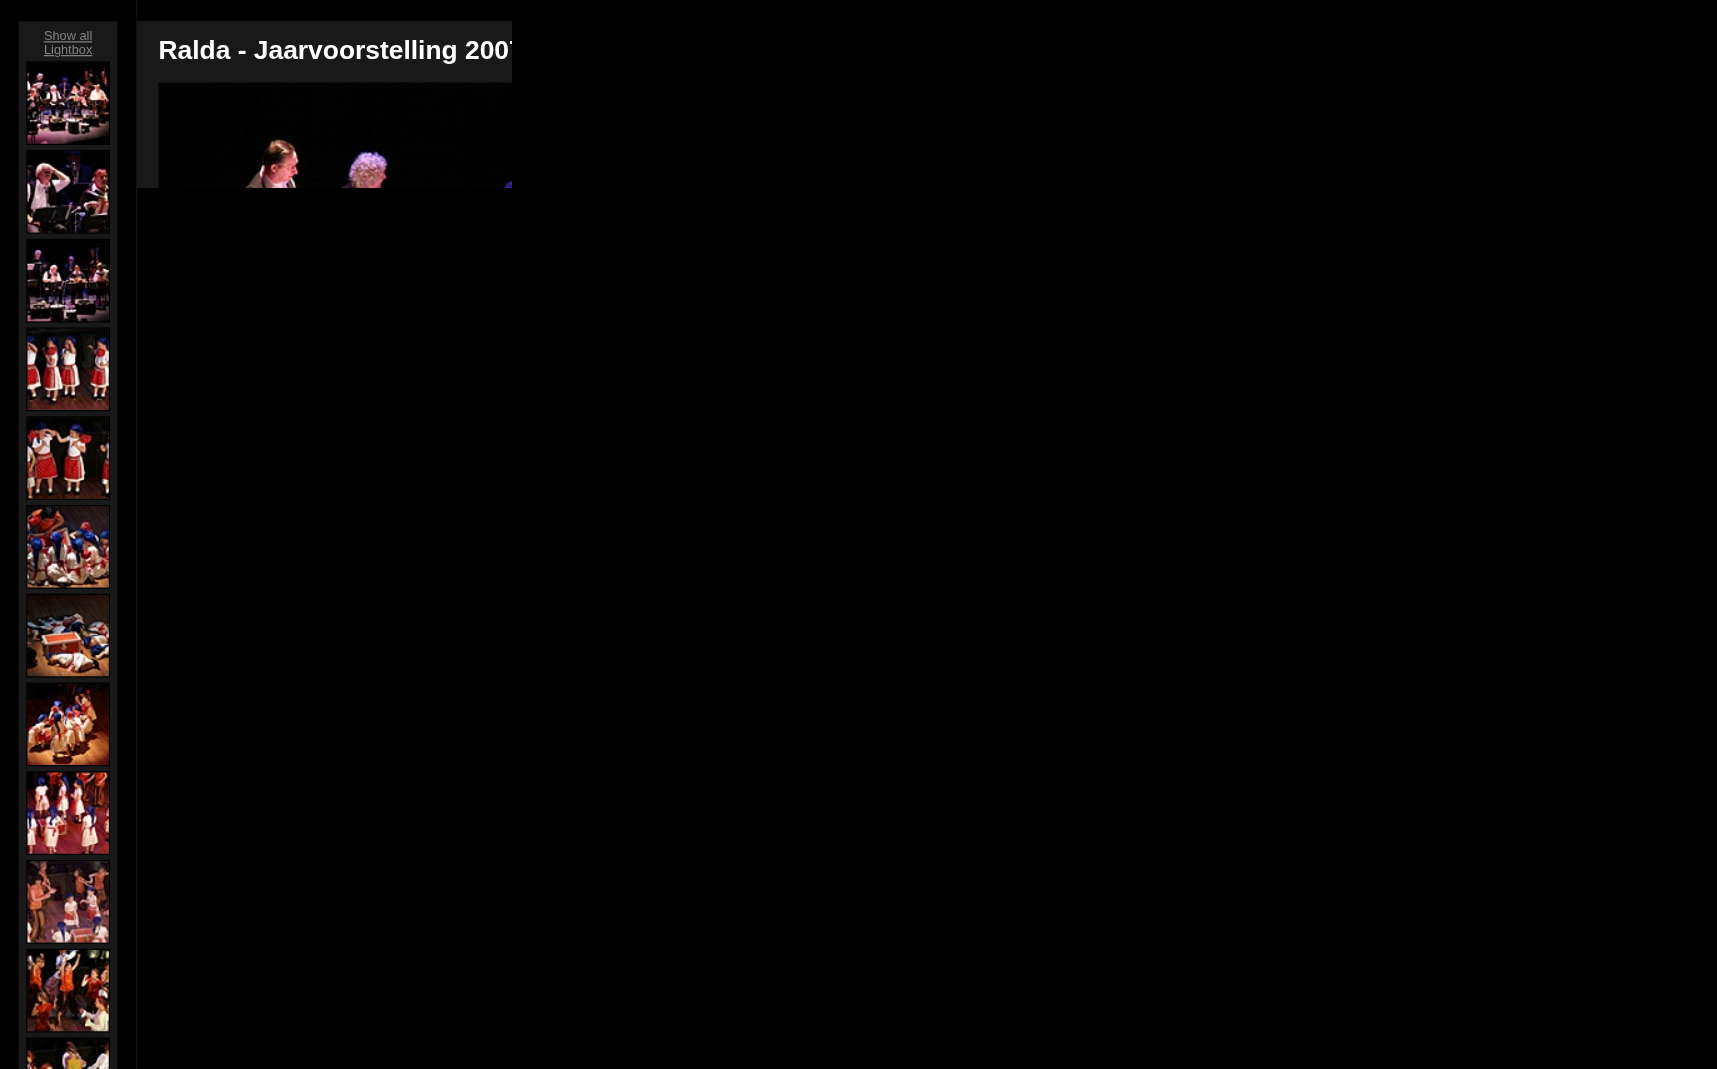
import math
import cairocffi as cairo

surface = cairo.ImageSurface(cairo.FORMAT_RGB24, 1717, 1069)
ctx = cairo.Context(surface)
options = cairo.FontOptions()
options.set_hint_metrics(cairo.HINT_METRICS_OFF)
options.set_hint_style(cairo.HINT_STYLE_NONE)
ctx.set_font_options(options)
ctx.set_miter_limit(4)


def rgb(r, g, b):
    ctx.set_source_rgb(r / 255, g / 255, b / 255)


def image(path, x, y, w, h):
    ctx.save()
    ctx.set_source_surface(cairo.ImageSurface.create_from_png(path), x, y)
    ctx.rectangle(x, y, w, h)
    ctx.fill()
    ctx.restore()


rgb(0, 0, 0)
ctx.paint()
image('image0.png', 18, 0, 119, 1069)
image('image1.png', 137, 21, 375, 167)
surface.write_to_png('render.png')
